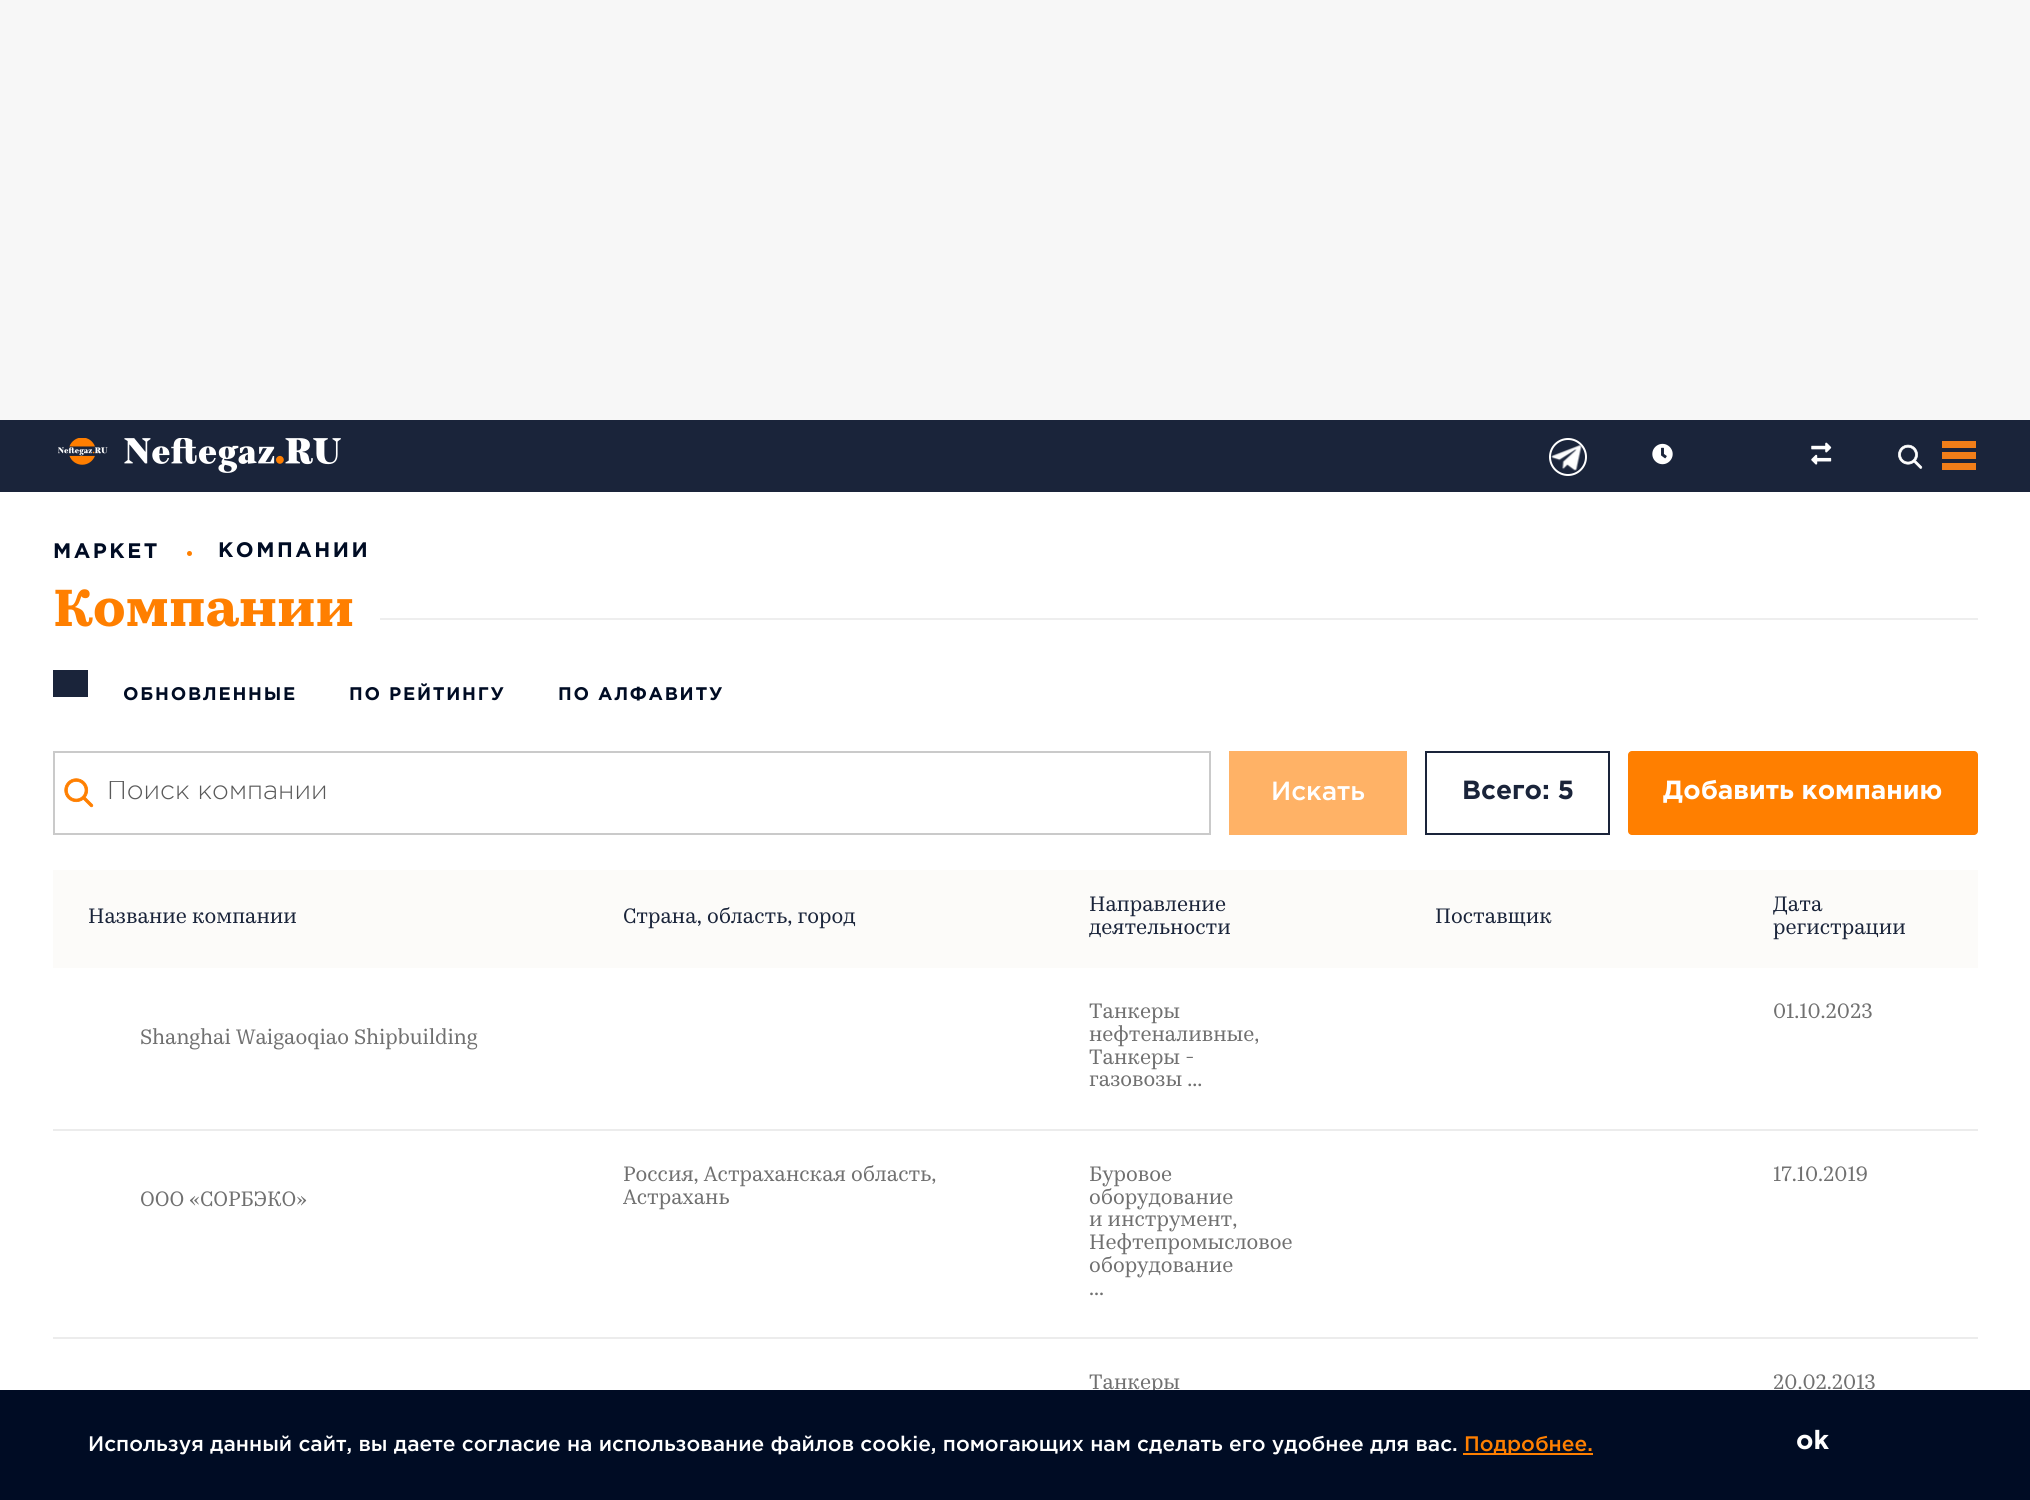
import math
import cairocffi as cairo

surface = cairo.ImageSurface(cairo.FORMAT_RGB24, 2030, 1500)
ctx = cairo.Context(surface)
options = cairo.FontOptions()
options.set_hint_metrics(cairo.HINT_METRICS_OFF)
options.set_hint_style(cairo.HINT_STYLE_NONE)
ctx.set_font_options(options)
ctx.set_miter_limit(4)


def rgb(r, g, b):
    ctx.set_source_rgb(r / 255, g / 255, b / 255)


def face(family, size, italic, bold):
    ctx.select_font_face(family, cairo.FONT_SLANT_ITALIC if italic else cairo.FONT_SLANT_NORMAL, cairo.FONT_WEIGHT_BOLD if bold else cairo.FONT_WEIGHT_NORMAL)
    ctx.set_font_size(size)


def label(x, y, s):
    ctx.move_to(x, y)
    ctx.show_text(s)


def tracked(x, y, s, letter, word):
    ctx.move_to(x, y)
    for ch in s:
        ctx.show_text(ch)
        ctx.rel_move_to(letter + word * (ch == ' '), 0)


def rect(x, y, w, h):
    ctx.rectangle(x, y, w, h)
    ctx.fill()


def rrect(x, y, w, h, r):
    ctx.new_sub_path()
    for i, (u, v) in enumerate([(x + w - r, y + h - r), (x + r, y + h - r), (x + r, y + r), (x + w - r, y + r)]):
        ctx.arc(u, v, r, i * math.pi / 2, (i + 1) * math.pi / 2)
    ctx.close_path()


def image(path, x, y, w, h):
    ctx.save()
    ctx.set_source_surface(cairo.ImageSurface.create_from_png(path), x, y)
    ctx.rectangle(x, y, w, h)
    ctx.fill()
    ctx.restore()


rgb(247, 247, 247)
ctx.paint()
rgb(26, 36, 58)
rect(0, 420, 2030, 72)
image('image0.png', 58, 438, 283, 35)
image('image1.png', 1551, 445, 31, 26)
ctx.arc(1568, 457, 18, 0, 2 * math.pi)
rgb(255, 255, 255)
ctx.stroke()
image('image2.png', 1652, 443, 21, 22)
image('image3.png', 1811, 442, 21, 23)
image('image4.png', 1898, 444, 25, 25)
rgb(240, 126, 25)
rect(1942, 441, 34, 7)
rect(1942, 452, 34, 7)
rect(1942, 463, 34, 7)
rgb(255, 255, 255)
rect(0, 492, 2030, 898)
face('Gotham', 21, 0, 1)
rgb(0, 12, 36)
tracked(53, 558, 'МАРКЕТ', 2.5, 0)
rgb(255, 127, 0)
ctx.new_path()
ctx.arc(189.5, 553.5, 2.5, 0, 2 * math.pi)
ctx.fill()
rgb(0, 12, 36)
tracked(218, 557, 'КОМПАНИИ', 2.5, 0)
face('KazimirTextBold', 52.5, 0, 1)
rgb(255, 127, 0)
label(53, 626, 'Компании')
rgb(238, 238, 238)
rect(380, 618, 1598, 2)
rgb(26, 36, 58)
rect(53, 670, 35, 27)
face('Gotham', 18.25, 0, 1)
rgb(0, 12, 36)
tracked(123, 700, 'ОБНОВЛЕННЫЕ', 1.75, 0)
tracked(349, 700, 'ПО РЕЙТИНГУ', 1.75, 0)
tracked(558, 700, 'ПО АЛФАВИТУ', 1.75, 0)
image('image5.png', 64, 778, 30, 30)
ctx.rectangle(54, 752, 1156, 82)
rgb(202, 202, 202)
ctx.stroke()
ctx.save()
ctx.rectangle(107, 781, 1050, 24)
ctx.clip()
face('Gotham Light', 26.25, 0, 0)
rgb(89, 89, 89)
label(107, 799, 'Поиск компании')
ctx.restore()
rgb(255, 178, 102)
rect(1229, 751, 178, 84)
face('Gotham', 26.25, 0, 0)
rgb(255, 255, 255)
label(1271, 800, 'Искать')
ctx.rectangle(1426, 752, 183, 82)
rgb(26, 36, 58)
ctx.stroke()
face('Gotham', 26.25, 0, 1)
label(1462, 799, 'Всего: 5')
rgb(255, 127, 0)
rrect(1628, 751, 350, 84, 4)
ctx.fill()
rgb(255, 255, 255)
label(1663, 799, 'Добавить компанию')
rgb(252, 251, 249)
rect(53, 870, 1925, 98)
face('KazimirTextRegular', 21, 0, 0)
rgb(26, 36, 58)
label(88, 923, 'Название компании')
label(623, 923, 'Страна, область, город')
label(1089, 911, 'Направление')
label(1089, 934, 'деятельности')
label(1435, 923, 'Поставщик')
label(1773, 911, 'Дата')
label(1773, 934, 'регистрации')
rgb(236, 236, 236)
rect(53, 1129, 1925, 2)
rgb(112, 112, 112)
label(1089, 1018, 'Танкеры')
label(1089, 1041, 'нефтеналивные,')
label(1089, 1064, 'Танкеры -')
label(1089, 1086, 'газовозы ...')
label(1773, 1018, '01.10.2023')
label(140, 1044, 'Shanghai Waigaoqiao Shipbuilding')
rgb(236, 236, 236)
rect(53, 1337, 1925, 2)
rgb(112, 112, 112)
label(623, 1181, 'Россия, Астраханская область,')
label(623, 1204, 'Астрахань')
label(1089, 1181, 'Буровое')
label(1089, 1204, 'оборудование')
label(1089, 1226, 'и инструмент,')
label(1089, 1249, 'Нефтепромысловое')
label(1089, 1272, 'оборудование')
label(1089, 1295, '...')
label(1773, 1181, '17.10.2019')
label(140, 1206, 'ООО «СОРБЭКО»')
label(1089, 1389, 'Танкеры')
label(1773, 1389, '20.02.2013')
rgb(0, 12, 36)
rect(0, 1390, 2030, 110)
face('Gotham', 21, 0, 0)
rgb(255, 255, 255)
label(88, 1451, 'Используя данный сайт, вы даете согласие на использование файлов cookie, помогающих нам сделать его удобнее для вас.')
rgb(255, 127, 0)
rect(1463, 1453, 130, 2)
label(1464, 1451, 'Подробнее.')
face('Gotham', 26.25, 0, 1)
rgb(255, 255, 255)
label(1796, 1449, 'ok')
surface.write_to_png('render.png')
